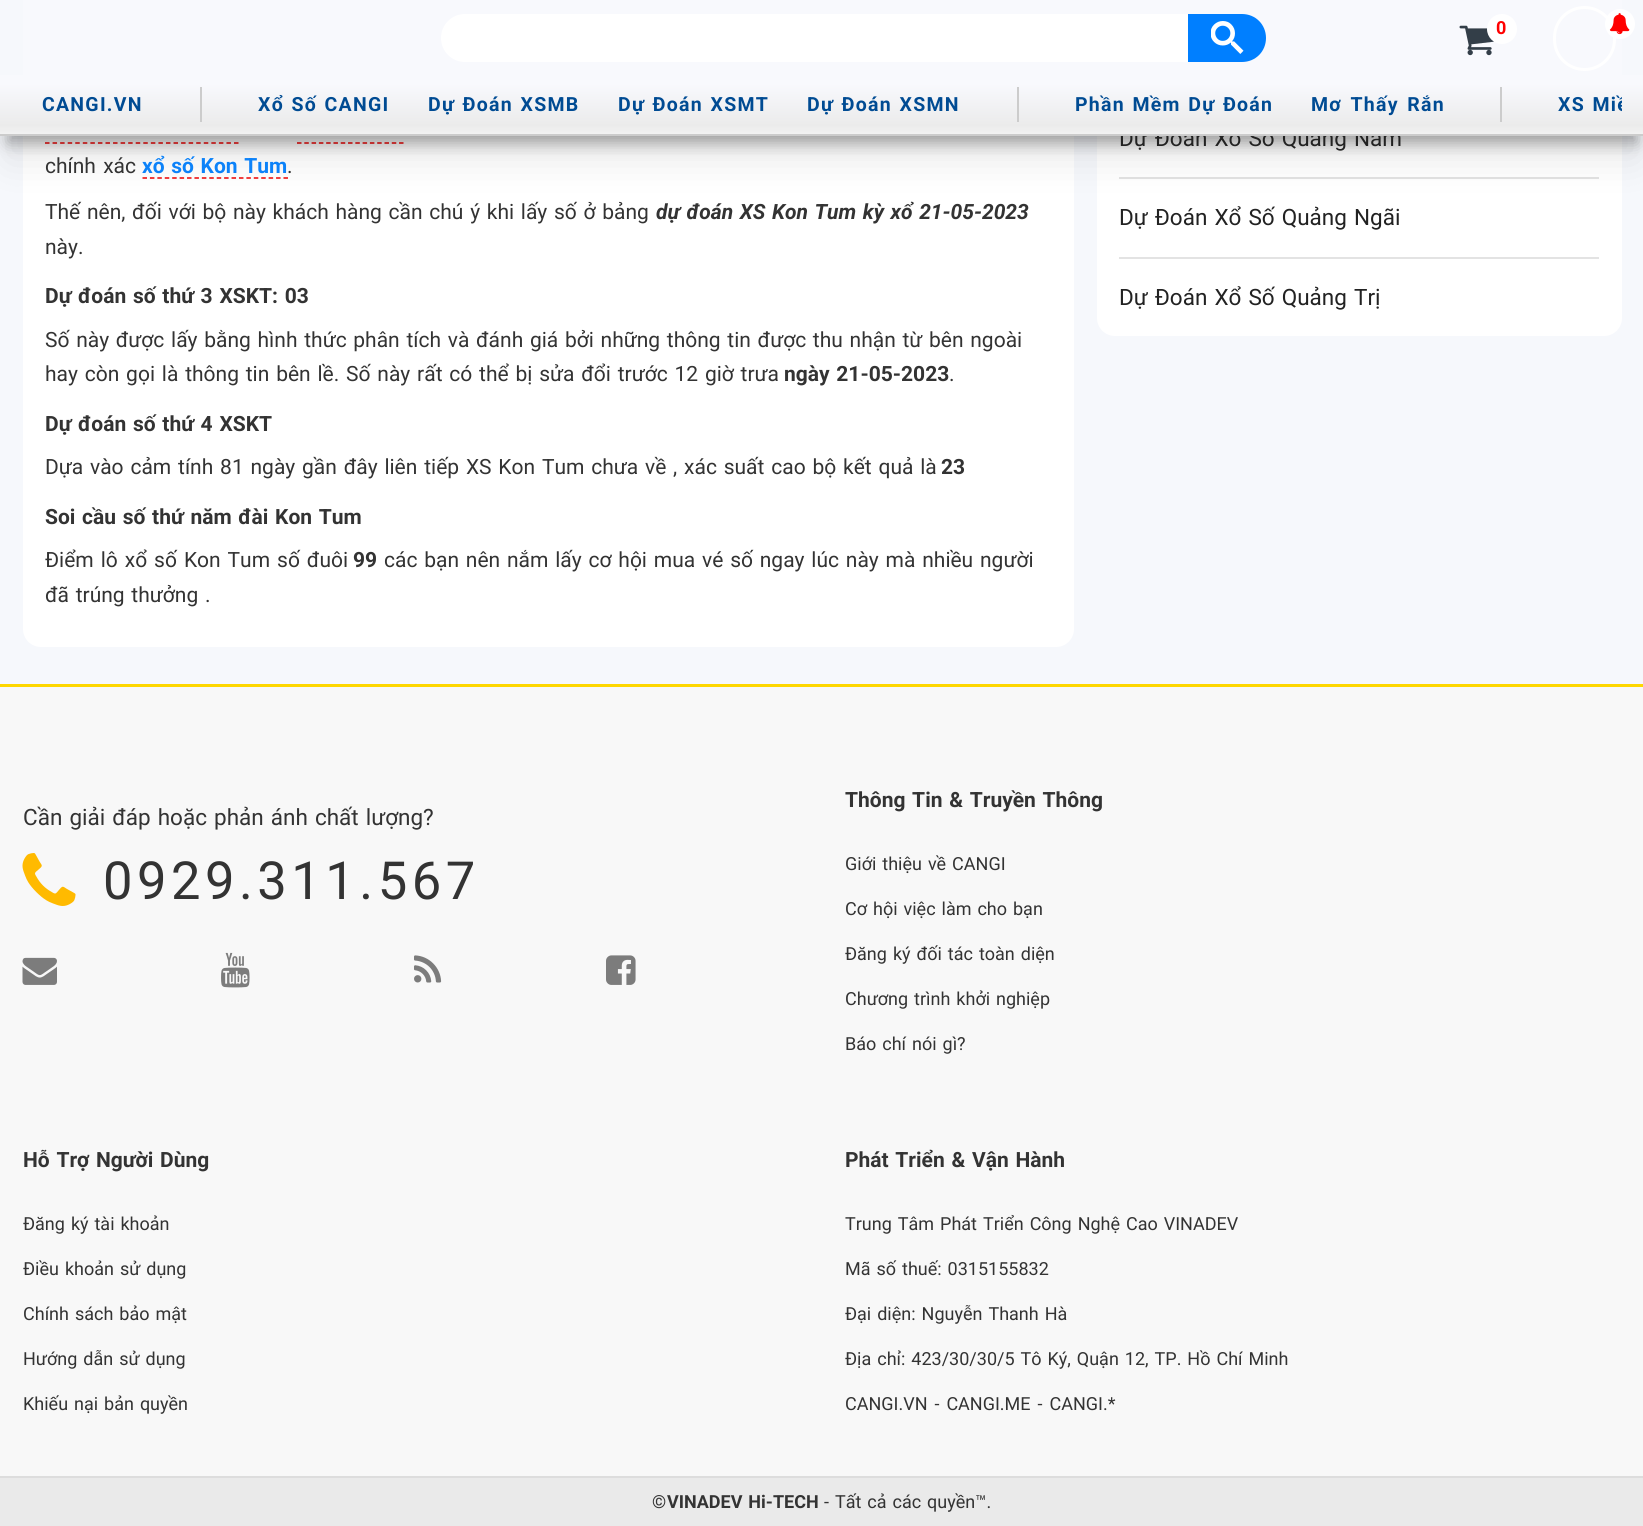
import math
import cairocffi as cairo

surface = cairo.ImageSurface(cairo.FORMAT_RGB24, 1643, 1526)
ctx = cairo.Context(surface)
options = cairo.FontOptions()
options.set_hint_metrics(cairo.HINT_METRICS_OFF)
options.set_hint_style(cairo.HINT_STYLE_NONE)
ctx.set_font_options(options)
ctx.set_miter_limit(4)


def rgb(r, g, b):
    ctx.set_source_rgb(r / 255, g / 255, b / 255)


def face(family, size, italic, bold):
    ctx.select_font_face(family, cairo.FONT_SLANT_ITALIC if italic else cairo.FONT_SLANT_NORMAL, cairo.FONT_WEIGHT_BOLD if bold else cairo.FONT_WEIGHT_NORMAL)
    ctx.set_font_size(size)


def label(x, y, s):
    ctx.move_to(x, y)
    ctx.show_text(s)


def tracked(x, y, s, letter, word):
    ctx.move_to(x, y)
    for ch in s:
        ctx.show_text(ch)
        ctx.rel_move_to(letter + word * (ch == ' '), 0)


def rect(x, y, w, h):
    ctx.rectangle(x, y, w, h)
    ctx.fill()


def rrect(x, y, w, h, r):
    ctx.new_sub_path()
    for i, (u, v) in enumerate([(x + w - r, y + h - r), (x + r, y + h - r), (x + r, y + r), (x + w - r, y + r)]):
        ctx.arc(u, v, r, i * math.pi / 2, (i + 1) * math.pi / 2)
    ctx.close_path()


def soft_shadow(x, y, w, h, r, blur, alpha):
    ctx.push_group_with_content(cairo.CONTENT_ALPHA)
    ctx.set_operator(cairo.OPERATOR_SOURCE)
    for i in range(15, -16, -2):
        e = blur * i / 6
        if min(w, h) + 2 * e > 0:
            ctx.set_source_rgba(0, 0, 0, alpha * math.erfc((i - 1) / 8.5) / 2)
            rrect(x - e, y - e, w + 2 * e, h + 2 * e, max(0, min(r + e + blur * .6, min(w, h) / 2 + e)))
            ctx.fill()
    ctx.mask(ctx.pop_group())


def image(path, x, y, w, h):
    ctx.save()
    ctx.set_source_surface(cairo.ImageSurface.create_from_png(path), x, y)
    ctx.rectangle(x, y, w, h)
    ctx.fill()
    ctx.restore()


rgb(246, 248, 252)
ctx.paint()
rgb(255, 255, 255)
rrect(23, -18, 1051, 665, 18)
ctx.fill()
rrect(1097, -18, 525, 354, 18)
ctx.fill()
rgb(248, 249, 253)
rect(23, 0, 1599, 75)
rgb(255, 255, 255)
rrect(441, 14, 825, 48, 24)
ctx.fill()
rgb(0, 127, 255)
ctx.new_path()
ctx.move_to(1188, 14)
ctx.line_to(1242, 14)
ctx.curve_to(1255.5, 14, 1266, 24.5, 1266, 38)
ctx.curve_to(1266, 51.5, 1255.5, 62, 1242, 62)
ctx.line_to(1188, 62)
ctx.close_path()
ctx.fill()
image('image0.png', 1211, 21, 33, 33)
image('image1.png', 1459, 25, 36, 31)
rgb(255, 255, 255)
ctx.arc(1502, 29, 15, 0, 2 * math.pi)
ctx.fill()
face('Roboto', 18, 0, 1)
rgb(255, 0, 0)
label(1496, 34, '0')
rrect(1554.5, 7.5, 60, 62, 30)
rgb(255, 255, 255)
ctx.set_line_width(3)
ctx.stroke()
ctx.arc(1620, 24, 15, 0, 2 * math.pi)
ctx.fill()
image('image2.png', 1609, 13, 21, 22)
ctx.new_path()
ctx.move_to(45, 143)
ctx.line_to(238.5, 143)
rgb(239, 0, 0)
ctx.set_line_width(1.5)
ctx.set_dash([4.5, 3.06])
ctx.stroke()
ctx.new_path()
ctx.move_to(297, 143)
ctx.line_to(403.5, 143)
ctx.set_dash([4.5, 2.79])
ctx.stroke()
rgb(0, 0, 0)
soft_shadow(8, 98, 1629, 45, 0, 7.5, 0.32)
ctx.new_path()
ctx.move_to(142.5, 178)
ctx.line_to(288, 178)
rgb(239, 0, 0)
ctx.set_dash([4.5, 2.92])
ctx.stroke()
rgb(227, 227, 227)
rect(1119, 177, 480, 2)
rgb(0, 0, 0)
soft_shadow(8, 113, 1629, 45, 0, 19, 0.1)
face('Roboto', 22.5, 0, 0)
rgb(34, 34, 34)
tracked(1119, 146, 'Dự Đoán Xổ Số Quảng Nam', 0, 1.5)
gradient = cairo.LinearGradient(822, 75, 822, 134)
gradient.add_color_stop_rgba(0.15, 0.973, 0.976, 0.992, 1)
gradient.add_color_stop_rgba(0.85, 0.922, 0.922, 0.922, 1)
gradient.add_color_stop_rgba(1, 0.949, 0.949, 0.949, 1)
ctx.set_source(gradient)
rect(0, 75, 1643, 59)
rgb(204, 204, 204)
rect(0, 134, 1643, 2)
face('Roboto', 19.5, 0, 1)
rgb(0, 75, 147)
tracked(42, 111, 'CANGI.VN', 1.25, 0)
rgb(204, 204, 204)
rect(200, 87, 2, 35)
rgb(0, 75, 147)
tracked(258, 111, 'Xổ Số CANGI', 1.25, 1.5)
tracked(428, 111, 'Dự Đoán XSMB', 1.25, 1.5)
tracked(618, 111, 'Dự Đoán XSMT', 1.25, 1.5)
tracked(807, 111, 'Dự Đoán XSMN', 1.25, 1.5)
rgb(204, 204, 204)
rect(1017, 87, 2, 35)
rgb(0, 75, 147)
tracked(1075, 111, 'Phần Mềm Dự Đoán', 1.25, 1.5)
tracked(1311, 111, 'Mơ Thấy Rắn', 1.25, 2.5)
rgb(204, 204, 204)
rect(1500, 87, 2, 35)
ctx.save()
ctx.rectangle(23, 87, 1599, 35)
ctx.clip()
rgb(0, 75, 147)
tracked(1558, 111, 'XS Miề', 1.25, 1.5)
ctx.restore()
face('Roboto', 21, 0, 0)
rgb(51, 51, 51)
tracked(45, 173, 'chính xác', 0, 2)
face('Roboto', 21, 0, 1)
rgb(12, 130, 249)
tracked(142, 173, 'xổ số Kon Tum', 0, 1.5)
face('Roboto', 21, 0, 0)
rgb(51, 51, 51)
label(287, 173, '.')
tracked(45, 219, 'Thế nên, đối với bộ này khách hàng cần chú ý khi lấy số ở bảng', 0, 1.5)
face('Roboto', 21, 1, 1)
tracked(656, 219, 'dự đoán XS Kon Tum kỳ xổ 21-05-2023', 0, 1.5)
face('Roboto', 21, 0, 0)
label(45, 254, 'này.')
face('Roboto', 21, 0, 1)
tracked(45, 303, 'Dự đoán số thứ 3 XSKT: 03', 0, 1.5)
face('Roboto', 21, 0, 0)
tracked(45, 347, 'Số này được lấy bằng hình thức phân tích và đánh giá bởi những thông tin được thu nhận từ bên ngoài', 0, 1.5)
tracked(45, 381, 'hay còn gọi là thông tin bên lề. Số này rất có thể bị sửa đổi trước 12 giờ trưa', 0, 1.6)
face('Roboto', 21, 0, 1)
tracked(784, 381, 'ngày 21-05-2023', 0, 1.5)
face('Roboto', 21, 0, 0)
label(949, 381, '.')
face('Roboto', 21, 0, 1)
tracked(45, 431, 'Dự đoán số thứ 4 XSKT', 0, 1.5)
face('Roboto', 21, 0, 0)
tracked(45, 474, 'Dựa vào cảm tính 81 ngày gần đây liên tiếp XS Kon Tum chưa về , xác suất cao bộ kết quả là', 0, 1.6)
face('Roboto', 21, 0, 1)
label(941, 474, '23')
tracked(45, 524, 'Soi cầu số thứ năm đài Kon Tum', 0, 1.5)
face('Roboto', 21, 0, 0)
tracked(45, 567, 'Điểm lô xổ số Kon Tum số đuôi', 0, 1.75)
face('Roboto', 21, 0, 1)
label(353, 567, '99')
face('Roboto', 21, 0, 0)
tracked(384, 567, 'các bạn nên nắm lấy cơ hội mua vé số ngay lúc này mà nhiều người', 0, 1.6)
tracked(45, 602, 'đã trúng thưởng .', 0, 1.5)
rgb(227, 227, 227)
rect(1119, 257, 480, 2)
face('Roboto', 22.5, 0, 0)
rgb(34, 34, 34)
tracked(1119, 225, 'Dự Đoán Xổ Số Quảng Ngãi', 0, 1.5)
tracked(1119, 305, 'Dự Đoán Xổ Số Quảng Trị', 0, 1.5)
rgb(248, 248, 248)
rect(0, 687, 1643, 789)
rgb(254, 215, 0)
rect(0, 684, 1643, 3)
rgb(51, 51, 51)
tracked(23, 825, 'Cần giải đáp hoặc phản ánh chất lượng?', 0, 1.5)
image('image3.png', 22, 853, 54, 53)
face('Roboto', 52.5, 0, 0)
tracked(103, 899, '0929.311.567', 4.5, 0)
image('image4.png', 22, 957, 35, 28)
image('image5.png', 221, 952, 29, 36)
image('image6.png', 414, 955, 28, 28)
image('image7.png', 606, 955, 30, 30)
face('Roboto', 21, 0, 1)
tracked(845, 807, 'Thông Tin & Truyền Thông', 0, 1.5)
face('Roboto', 18, 0, 0)
tracked(845, 870, 'Giới thiệu về CANGI', 0, 1.5)
tracked(845, 915, 'Cơ hội việc làm cho bạn', 0, 1.5)
tracked(845, 960, 'Đăng ký đối tác toàn diện', 0, 1.5)
tracked(845, 1005, 'Chương trình khởi nghiệp', 0, 1.5)
tracked(845, 1050, 'Báo chí nói gì?', 0, 1.5)
face('Roboto', 21, 0, 1)
tracked(23, 1167, 'Hỗ Trợ Người Dùng', 0, 1.5)
face('Roboto', 18, 0, 0)
tracked(23, 1230, 'Đăng ký tài khoản', 0, 1.5)
tracked(23, 1275, 'Điều khoản sử dụng', 0, 1.5)
tracked(23, 1320, 'Chính sách bảo mật', 0, 1.5)
tracked(23, 1365, 'Hướng dẫn sử dụng', 0, 1.5)
tracked(23, 1410, 'Khiếu nại bản quyền', 0, 1.5)
face('Roboto', 21, 0, 1)
tracked(845, 1167, 'Phát Triển & Vận Hành', 0, 1.5)
face('Roboto', 18, 0, 0)
tracked(845, 1230, 'Trung Tâm Phát Triển Công Nghệ Cao VINADEV', 0, 1.5)
tracked(845, 1275, 'Mã số thuế: 0315155832', 0, 1.5)
tracked(845, 1320, 'Đại diện: Nguyễn Thanh Hà', 0, 1.5)
tracked(845, 1365, 'Địa chỉ: 423/30/30/5 Tô Ký, Quận 12, TP. Hồ Chí Minh', 0, 1.5)
tracked(845, 1410, 'CANGI.VN - CANGI.ME - CANGI.*', 0, 2.5)
rgb(234, 234, 234)
rect(0, 1478, 1643, 48)
rgb(221, 221, 221)
rect(0, 1476, 1643, 2)
rgb(51, 51, 51)
label(652, 1508, '©')
face('Roboto', 18, 0, 1)
tracked(667, 1508, 'VINADEV Hi-TECH', 0, 1.5)
face('Roboto', 18, 0, 0)
tracked(824, 1508, '- Tất cả các quyền™.', 0, 1.5)
surface.write_to_png('render.png')
